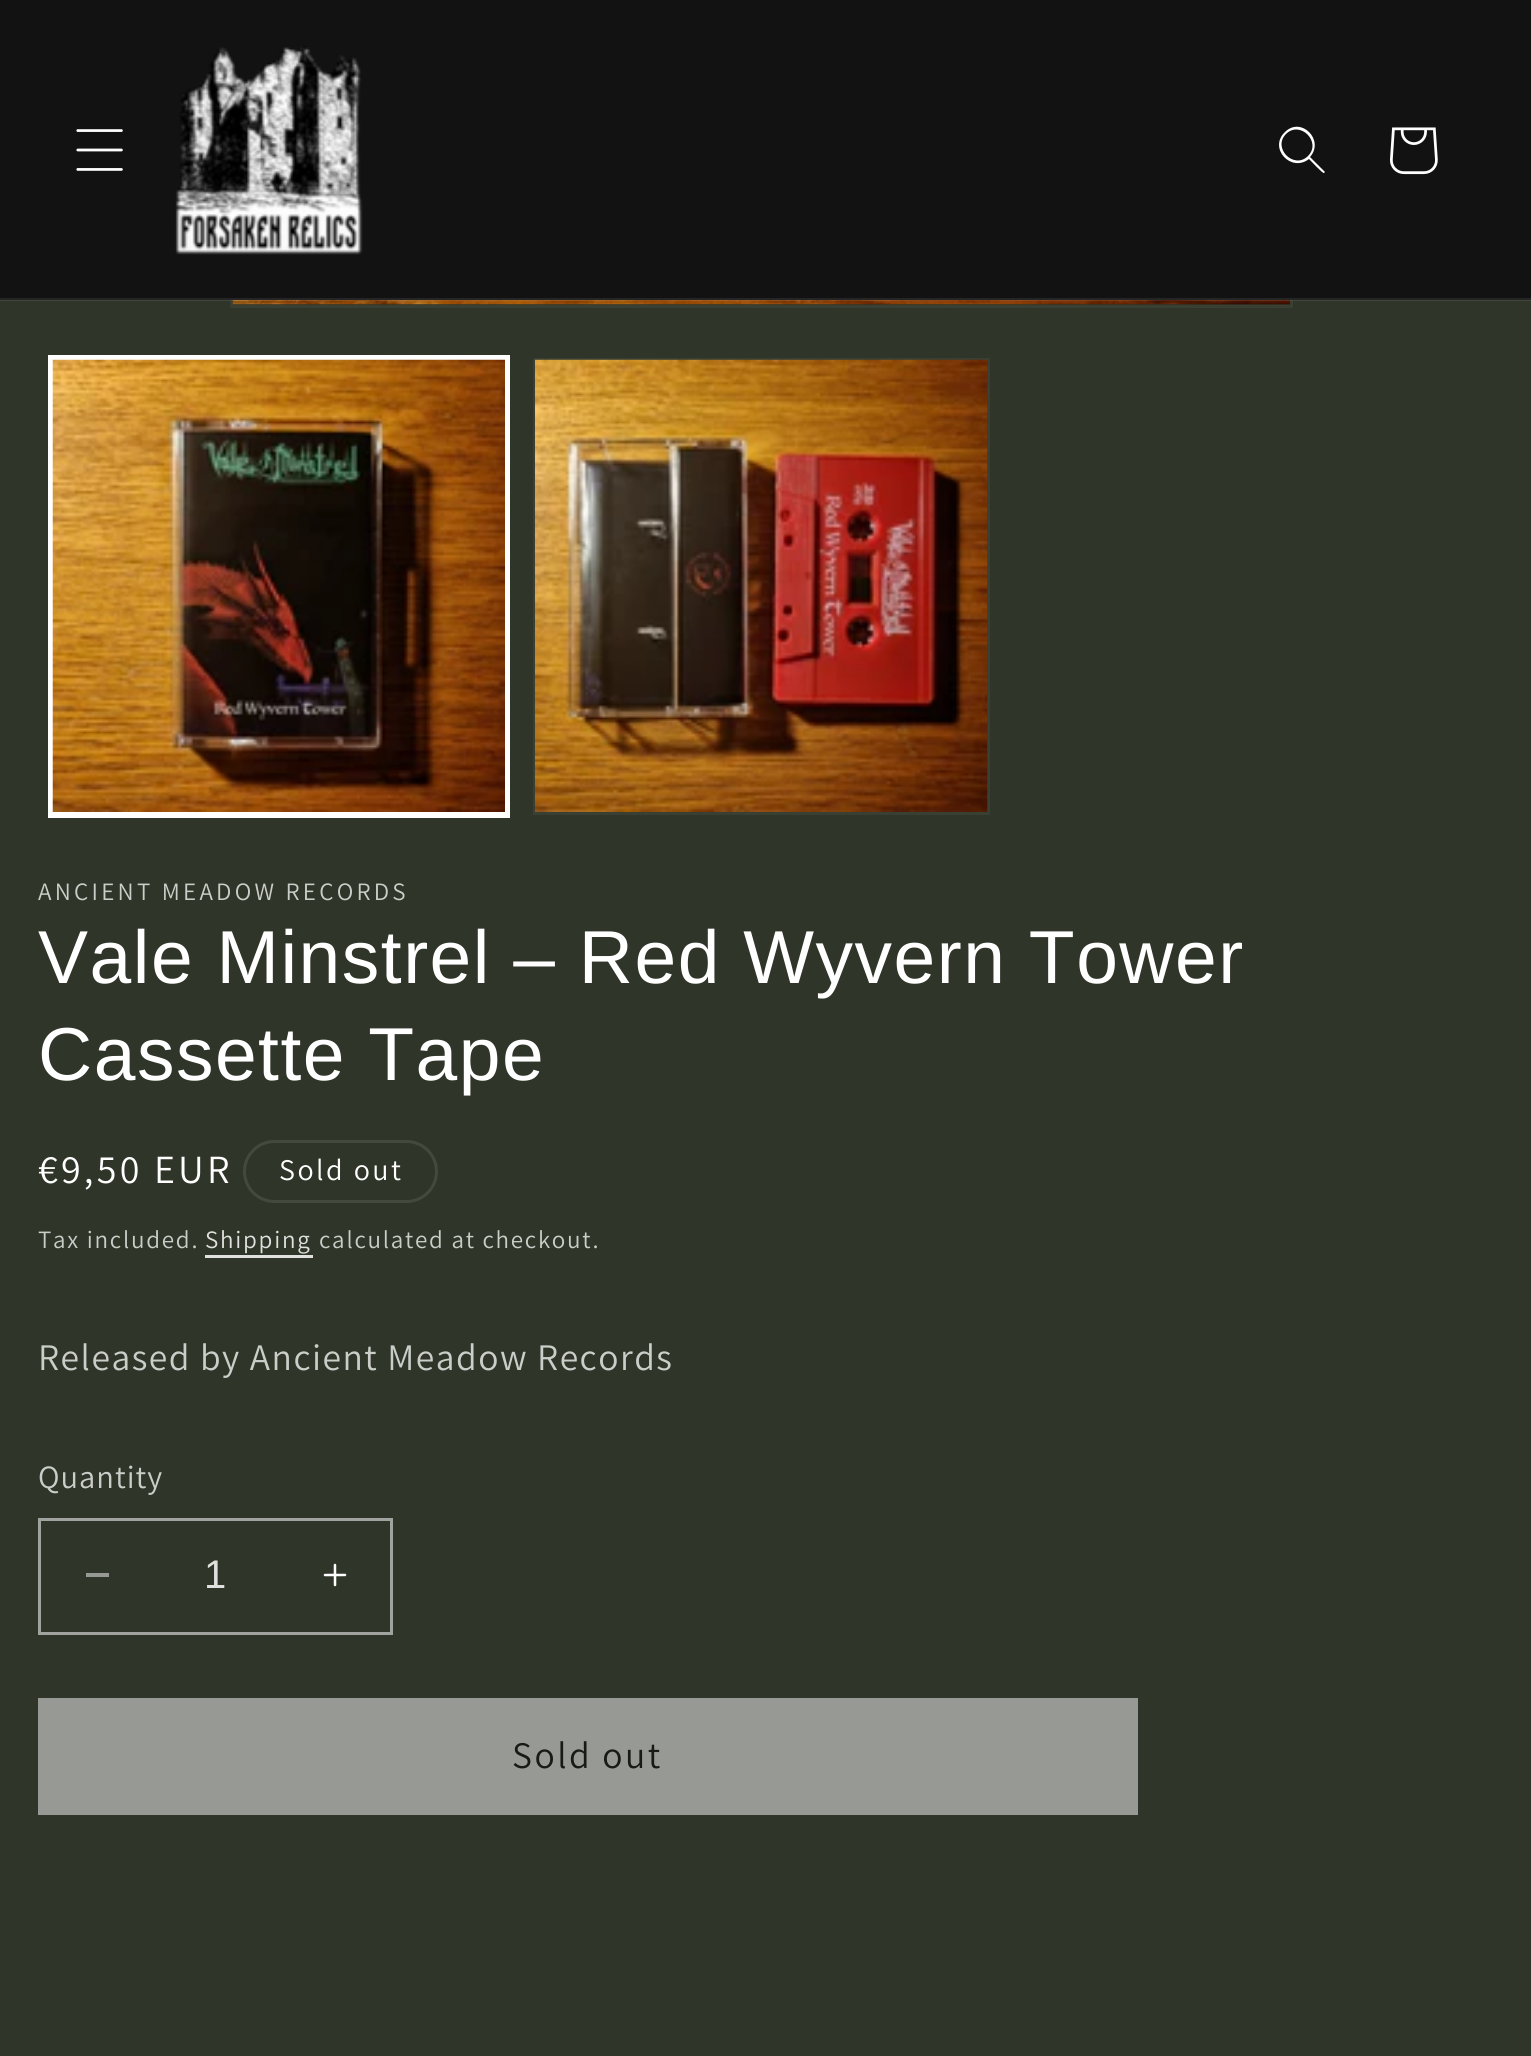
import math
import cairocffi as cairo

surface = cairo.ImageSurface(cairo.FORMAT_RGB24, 1531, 2056)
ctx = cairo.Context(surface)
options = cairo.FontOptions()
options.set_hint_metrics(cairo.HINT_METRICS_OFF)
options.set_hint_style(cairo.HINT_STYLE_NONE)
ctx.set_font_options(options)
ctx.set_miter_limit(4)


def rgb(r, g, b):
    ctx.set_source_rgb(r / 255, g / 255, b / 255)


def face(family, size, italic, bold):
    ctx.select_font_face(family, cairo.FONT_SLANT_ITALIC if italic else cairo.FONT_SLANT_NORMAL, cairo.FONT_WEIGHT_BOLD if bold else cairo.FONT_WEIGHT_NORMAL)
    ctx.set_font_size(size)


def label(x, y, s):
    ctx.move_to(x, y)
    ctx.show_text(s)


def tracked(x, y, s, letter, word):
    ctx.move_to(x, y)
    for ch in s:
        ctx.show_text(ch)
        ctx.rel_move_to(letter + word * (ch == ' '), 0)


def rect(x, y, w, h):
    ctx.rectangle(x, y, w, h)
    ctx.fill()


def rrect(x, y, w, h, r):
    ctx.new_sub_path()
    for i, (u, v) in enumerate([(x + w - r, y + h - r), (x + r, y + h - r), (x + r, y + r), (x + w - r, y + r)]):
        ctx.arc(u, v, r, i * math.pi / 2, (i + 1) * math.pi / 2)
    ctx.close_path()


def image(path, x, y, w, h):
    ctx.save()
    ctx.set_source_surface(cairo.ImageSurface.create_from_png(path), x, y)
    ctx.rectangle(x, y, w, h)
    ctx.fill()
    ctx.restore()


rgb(47, 53, 40)
ctx.paint()
ctx.rectangle(231.5, -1.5, 1060, 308)
rgb(57, 63, 51)
ctx.set_line_width(3)
ctx.stroke()
rgb(18, 18, 18)
rect(0, 0, 1531, 300)
image('image3.png', 232, 300, 1058, 5)
ctx.set_source_rgba(1, 1, 1, 0.08)
rect(0, 298, 1531, 3)
image('image0.png', 76, 129, 47, 42)
image('image1.png', 175, 46, 188, 209)
rgb(255, 255, 255)
ctx.set_fill_rule(cairo.FILL_RULE_EVEN_ODD)
ctx.new_path()
ctx.move_to(1308, 156)
ctx.curve_to(1294, 170, 1272, 148, 1286, 134)
ctx.curve_to(1300, 120, 1322, 142, 1308, 156)
ctx.close_path()
ctx.move_to(1309, 159)
ctx.curve_to(1291, 173, 1268, 148, 1285, 132)
ctx.curve_to(1301, 116, 1325, 140, 1310, 157)
ctx.line_to(1325, 172)
ctx.line_to(1324, 173)
ctx.curve_to(1323, 174, 1311, 161, 1309, 159)
ctx.close_path()
ctx.fill()
image('image2.png', 1390, 127, 48, 48)
ctx.rectangle(49.5, 356.5, 459, 460)
ctx.stroke()
ctx.rectangle(51.5, 359.5, 455, 454)
ctx.stroke()
image('image4.png', 52, 359, 453, 453)
ctx.rectangle(534.5, 359.5, 454, 454)
rgb(57, 63, 51)
ctx.stroke()
image('image5.png', 535, 359, 453, 453)
face('Assistant', 25, 0, 0)
rgb(203, 205, 201)
tracked(38, 900, 'ANCIENT MEADOW RECORDS', 3.25, 0)
face('Arimo', 75, 0, 0)
rgb(255, 255, 255)
tracked(38, 983, 'Vale Minstrel – Red Wyvern Tower', 1.5, 0)
tracked(38, 1080, 'Cassette Tape', 1.5, 0)
face('Assistant', 40, 0, 0)
tracked(38, 1183, '€9,50 EUR', 3.25, 0)
rrect(244.5, 1141.5, 192, 60, 30)
rgb(68, 73, 62)
ctx.stroke()
face('Assistant', 30, 0, 0)
rgb(255, 255, 255)
tracked(279, 1180, 'Sold out', 2.5, 0)
face('Assistant', 25, 0, 0)
rgb(203, 205, 201)
tracked(38, 1248, 'Tax included.', 1.75, 0)
rgb(224, 225, 223)
tracked(205, 1248, 'Shipping', 1.75, 0)
rect(205, 1255, 108, 3)
rgb(203, 205, 201)
tracked(319, 1248, 'calculated at checkout.', 1.75, 0)
face('Assistant', 37.5, 0, 0)
tracked(38, 1370, 'Released by Ancient Meadow Records', 1.5, 0)
face('Assistant', 32.5, 0, 0)
tracked(38, 1488, 'Quantity', 1, 0)
rgb(151, 154, 148)
rect(86, 1573, 23, 4)
image('image6.png', 323, 1563, 24, 24)
ctx.rectangle(39.5, 1519.5, 352, 114)
rgb(161, 164, 158)
ctx.stroke()
face('Liberation Sans', 40, 0, 0)
rgb(224, 225, 223)
label(204, 1588, '1')
rgb(151, 154, 148)
rect(38, 1698, 1100, 117)
face('Assistant', 37.5, 0, 0)
rgb(24, 27, 20)
tracked(512, 1768, 'Sold out', 2.5, 0)
surface.write_to_png('render.png')
